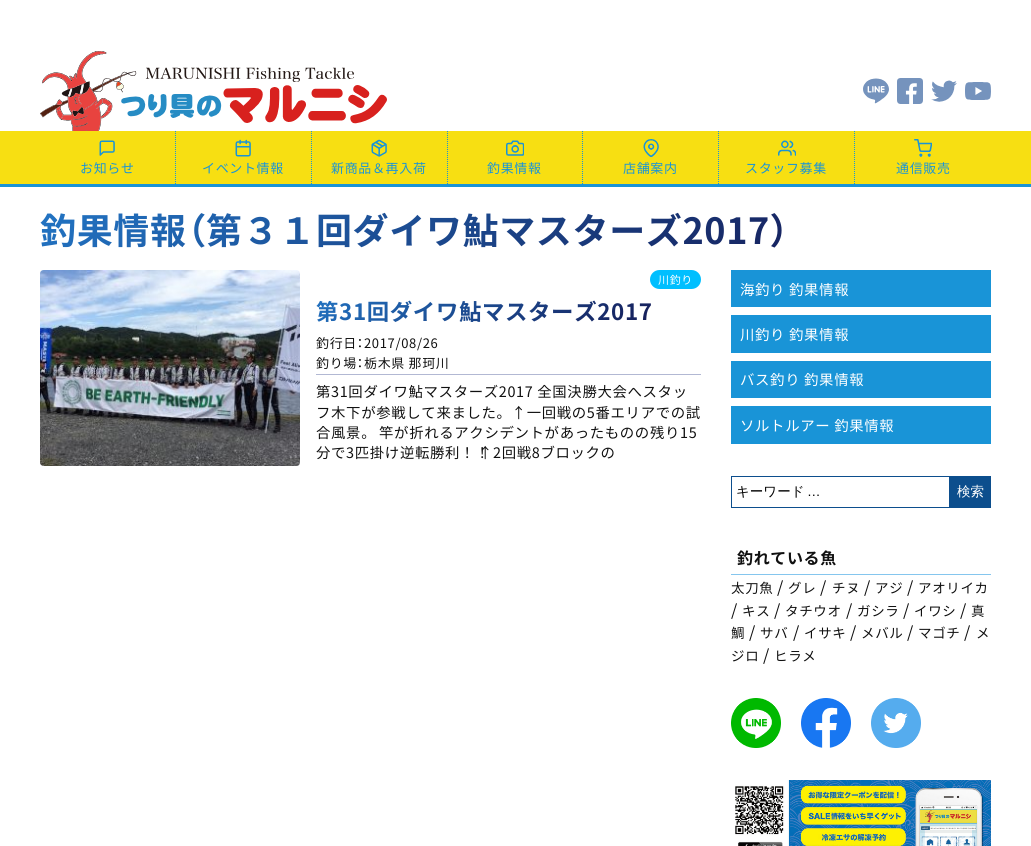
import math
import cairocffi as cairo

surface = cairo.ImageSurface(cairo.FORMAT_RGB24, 1031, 846)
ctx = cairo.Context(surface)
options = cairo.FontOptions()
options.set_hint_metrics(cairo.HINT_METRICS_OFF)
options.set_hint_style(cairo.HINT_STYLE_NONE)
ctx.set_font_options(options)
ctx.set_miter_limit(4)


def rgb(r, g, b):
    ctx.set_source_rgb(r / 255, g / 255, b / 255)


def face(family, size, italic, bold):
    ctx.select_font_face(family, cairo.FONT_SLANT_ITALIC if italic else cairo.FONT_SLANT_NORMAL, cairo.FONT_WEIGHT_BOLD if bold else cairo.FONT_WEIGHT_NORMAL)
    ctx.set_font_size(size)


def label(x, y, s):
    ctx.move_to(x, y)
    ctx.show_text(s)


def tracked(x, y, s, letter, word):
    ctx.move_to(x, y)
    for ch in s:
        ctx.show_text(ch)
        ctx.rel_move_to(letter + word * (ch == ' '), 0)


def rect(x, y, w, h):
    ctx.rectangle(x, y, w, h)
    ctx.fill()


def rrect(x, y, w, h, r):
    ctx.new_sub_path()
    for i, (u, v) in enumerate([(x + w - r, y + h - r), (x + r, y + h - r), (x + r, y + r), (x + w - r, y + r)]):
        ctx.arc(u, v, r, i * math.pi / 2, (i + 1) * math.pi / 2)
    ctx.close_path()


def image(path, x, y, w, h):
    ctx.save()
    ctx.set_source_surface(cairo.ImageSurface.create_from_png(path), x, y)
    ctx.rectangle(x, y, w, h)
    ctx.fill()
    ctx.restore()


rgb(255, 255, 255)
ctx.paint()
image('image0.png', 40, 51, 347, 80)
image('image1.png', 863, 78, 26, 26)
image('image2.png', 897, 78, 26, 26)
image('image3.png', 931, 80, 26, 22)
image('image4.png', 965, 82, 26, 18)
rgb(247, 223, 18)
rect(0, 131, 1031, 53)
rgb(25, 148, 215)
rect(0, 184, 1031, 3)
ctx.new_path()
ctx.move_to(175.5, 131)
ctx.line_to(175.5, 184)
ctx.set_line_width(1)
ctx.set_dash([1, 1])
ctx.stroke()
image('image5.png', 99, 140, 16, 16)
face('Noto Sans JP', 13, 0, 0)
tracked(80, 173, 'お知らせ', 0.65, 0)
ctx.new_path()
ctx.move_to(311.5, 131)
ctx.line_to(311.5, 184)
ctx.stroke()
image('image6.png', 235, 139, 16, 18)
tracked(202, 173, 'イベント情報', 0.65, 0)
ctx.new_path()
ctx.move_to(447.5, 131)
ctx.line_to(447.5, 184)
ctx.stroke()
image('image7.png', 371, 139, 16, 18)
tracked(331, 173, '新商品＆再入荷', 0.65, 0)
ctx.new_path()
ctx.move_to(582.5, 131)
ctx.line_to(582.5, 184)
ctx.stroke()
image('image8.png', 506, 140, 18, 16)
tracked(487, 173, '釣果情報', 0.65, 0)
ctx.new_path()
ctx.move_to(718.5, 131)
ctx.line_to(718.5, 184)
ctx.stroke()
image('image9.png', 643, 139, 16, 18)
tracked(623, 173, '店舗案内', 0.65, 0)
ctx.new_path()
ctx.move_to(854.5, 131)
ctx.line_to(854.5, 184)
ctx.stroke()
image('image10.png', 778, 140, 18, 16)
tracked(745, 173, 'スタッフ募集', 0.65, 0)
image('image11.png', 914, 139, 18, 18)
tracked(896, 173, '通信販売', 0.65, 0)
face('Noto Sans JP', 36, 0, 1)
gradient = cairo.LinearGradient(723, 475, 308, -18)
gradient.add_color_stop_rgba(0, 0.075, 0.059, 0.278, 1)
gradient.add_color_stop_rgba(1, 0.133, 0.455, 0.765, 1)
ctx.set_source(gradient)
tracked(40, 244, '釣果情報', 0.65, 0)
face('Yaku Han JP', 36, 0, 1)
tracked(187, 244, '（', 0.65, 0)
face('Noto Sans JP', 36, 0, 1)
tracked(206, 244, '第３１回ダイワ鮎マスターズ2017', 0.65, 0)
face('Yaku Han JP', 36, 0, 1)
tracked(770, 244, '）', 0.65, 0)
image('image12.png', 40, 270, 260, 196)
rgb(0, 191, 255)
rrect(650, 270, 51, 19, 9.5)
ctx.fill()
face('Noto Sans JP', 11, 0, 0)
rgb(255, 255, 255)
tracked(658, 284, '川釣り', 0.65, 0)
face('Noto Sans JP', 22.4, 0, 1)
gradient = cairo.LinearGradient(599, 418, 418, 203)
gradient.add_color_stop_rgba(0, 0.075, 0.059, 0.278, 1)
gradient.add_color_stop_rgba(1, 0.133, 0.455, 0.765, 1)
ctx.set_source(gradient)
tracked(316, 320, '第31回ダイワ鮎マスターズ2017', 0.65, 0)
face('Noto Sans JP', 13, 0, 0)
rgb(16, 16, 16)
tracked(316, 348, '釣行日', 0.65, 0)
face('Yaku Han JP', 13, 0, 0)
tracked(357, 348, '：', 0.65, 0)
face('Noto Sans JP', 13, 0, 0)
tracked(364, 348, '2017/08/26', 0.65, 0)
tracked(316, 368, '釣り場', 0.65, 0)
face('Yaku Han JP', 13, 0, 0)
tracked(357, 368, '：', 0.65, 0)
face('Noto Sans JP', 13, 0, 0)
tracked(364, 368, '栃木県 那珂川', 0.65, 0)
rgb(178, 184, 211)
rect(316, 374, 385, 1)
face('Noto Sans JP', 14.4, 0, 0)
rgb(16, 16, 16)
tracked(316, 397, '第31回ダイワ鮎マスターズ2017 全国決勝大会へスタッ', 0.65, 0)
tracked(316, 418, 'フ木下が参戦して来ました。↑一回戦の5番エリアでの試', 0.65, 0)
tracked(316, 438, '合風景。 竿が折れるアクシデントがあったものの残り15', 0.65, -1)
tracked(316, 458, '分で3匹掛け逆転勝利！！', 0.65, 0)
tracked(478, 458, '↑2回戦8ブロックの', 0.65, 0)
rgb(25, 148, 215)
rect(731, 270, 260, 37)
rgb(255, 255, 255)
tracked(740, 295, '海釣り 釣果情報', 0.65, 0)
rgb(25, 148, 215)
rect(731, 315, 260, 38)
rgb(255, 255, 255)
tracked(740, 340, '川釣り 釣果情報', 0.65, 0)
rgb(25, 148, 215)
rect(731, 361, 260, 37)
rgb(255, 255, 255)
tracked(740, 385, 'バス釣り 釣果情報', 0.65, 0)
rgb(25, 148, 215)
rect(731, 406, 260, 38)
rgb(255, 255, 255)
tracked(740, 431, 'ソルトルアー 釣果情報', 0.65, 0)
ctx.rectangle(731.5, 476.5, 218, 31)
rgb(12, 78, 141)
ctx.set_dash([])
ctx.stroke()
face('WenQuanYi Zen Hei Medium', 13.5, 0, 0)
rgb(0, 0, 0)
label(736, 496, 'キーワード')
face('Liberation Sans', 13.5, 0, 0)
label(807, 496, '…')
rgb(12, 78, 141)
rect(950, 476, 41, 32)
face('WenQuanYi Zen Hei Medium', 13.5, 0, 0)
rgb(255, 255, 255)
label(957, 496, '検索')
rgb(133, 198, 238)
rect(731, 574, 260, 1)
face('Noto Sans JP', 16, 0, 1)
rgb(16, 16, 16)
tracked(737, 564, '釣れている魚', 0.65, 0)
face('Noto Sans JP', 13.5, 0, 0)
tracked(731, 593, '太刀魚', 0.65, 0)
face('Noto Sans JP', 16, 0, 0)
tracked(777, 593, '/', 0.65, 0)
face('Noto Sans JP', 13.5, 0, 0)
tracked(788, 593, 'グレ', 0.65, 0)
face('Noto Sans JP', 16, 0, 0)
tracked(820, 593, '/', 0.65, 0)
face('Noto Sans JP', 13.5, 0, 0)
tracked(832, 593, 'チヌ', 0.65, 0)
face('Noto Sans JP', 16, 0, 0)
tracked(864, 593, '/', 0.65, 0)
face('Noto Sans JP', 13.5, 0, 0)
tracked(875, 593, 'アジ', 0.65, 0)
face('Noto Sans JP', 16, 0, 0)
tracked(907, 593, '/', 0.65, 0)
face('Noto Sans JP', 13.5, 0, 0)
tracked(918, 593, 'アオリイカ', 0.65, 0)
face('Noto Sans JP', 16, 0, 0)
tracked(731, 616, '/', 0.65, 0)
face('Noto Sans JP', 13.5, 0, 0)
tracked(742, 616, 'キス', 0.65, 0)
face('Noto Sans JP', 16, 0, 0)
tracked(774, 616, '/', 0.65, 0)
face('Noto Sans JP', 13.5, 0, 0)
tracked(785, 616, 'タチウオ', 0.65, 0)
face('Noto Sans JP', 16, 0, 0)
tracked(846, 616, '/', 0.65, 0)
face('Noto Sans JP', 13.5, 0, 0)
tracked(857, 616, 'ガシラ', 0.65, 0)
face('Noto Sans JP', 16, 0, 0)
tracked(903, 616, '/', 0.65, 0)
face('Noto Sans JP', 13.5, 0, 0)
tracked(914, 616, 'イワシ', 0.65, 0)
face('Noto Sans JP', 16, 0, 0)
tracked(960, 616, '/', 0.65, 0)
face('Noto Sans JP', 13.5, 0, 0)
tracked(971, 616, '真', 0.65, 0)
tracked(731, 638, '鯛', 0.65, 0)
face('Noto Sans JP', 16, 0, 0)
tracked(749, 638, '/', 0.65, 0)
face('Noto Sans JP', 13.5, 0, 0)
tracked(760, 638, 'サバ', 0.65, 0)
face('Noto Sans JP', 16, 0, 0)
tracked(793, 638, '/', 0.65, 0)
face('Noto Sans JP', 13.5, 0, 0)
tracked(804, 638, 'イサキ', 0.65, 0)
face('Noto Sans JP', 16, 0, 0)
tracked(850, 638, '/', 0.65, 0)
face('Noto Sans JP', 13.5, 0, 0)
tracked(861, 638, 'メバル', 0.65, 0)
face('Noto Sans JP', 16, 0, 0)
tracked(907, 638, '/', 0.65, 0)
face('Noto Sans JP', 13.5, 0, 0)
tracked(918, 638, 'マゴチ', 0.65, 0)
face('Noto Sans JP', 16, 0, 0)
tracked(964, 638, '/', 0.65, 0)
face('Noto Sans JP', 13.5, 0, 0)
tracked(976, 638, 'メ', 0.65, 0)
tracked(731, 661, 'ジロ', 0.65, 0)
face('Noto Sans JP', 16, 0, 0)
tracked(763, 661, '/', 0.65, 0)
face('Noto Sans JP', 13.5, 0, 0)
tracked(774, 661, 'ヒラメ', 0.65, 0)
image('image13.png', 731, 698, 50, 50)
image('image14.png', 801, 698, 50, 50)
image('image15.png', 871, 698, 50, 50)
image('image16.png', 735, 780, 256, 66)
surface.write_to_png('render.png')
